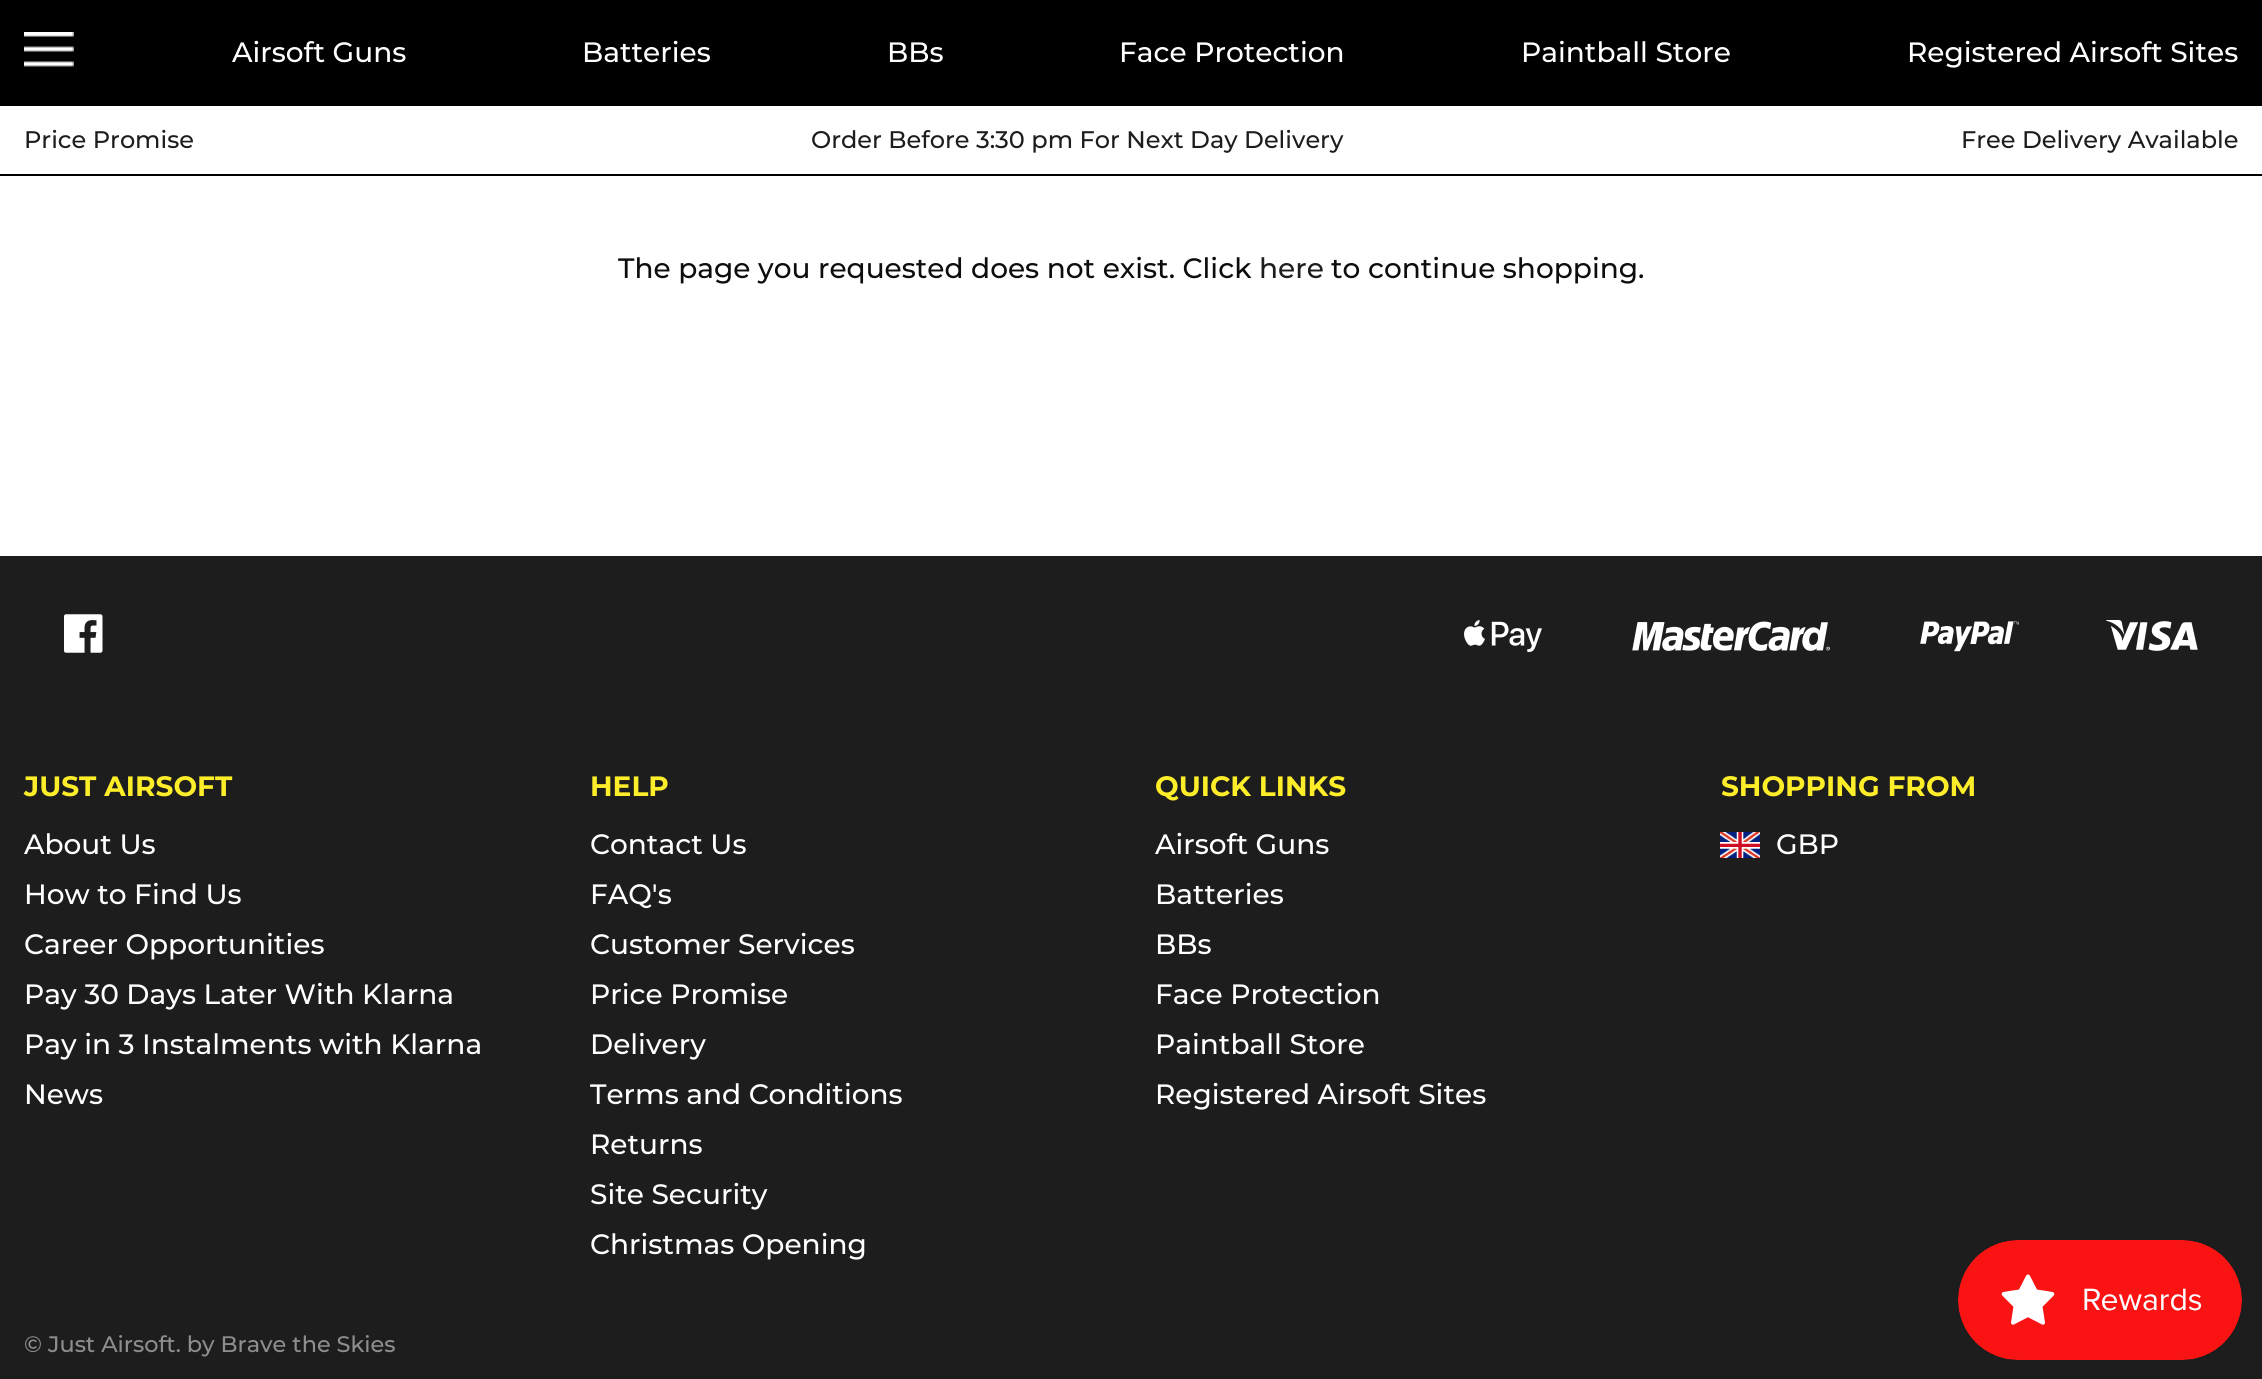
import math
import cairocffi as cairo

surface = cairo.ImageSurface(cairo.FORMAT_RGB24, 2262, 1379)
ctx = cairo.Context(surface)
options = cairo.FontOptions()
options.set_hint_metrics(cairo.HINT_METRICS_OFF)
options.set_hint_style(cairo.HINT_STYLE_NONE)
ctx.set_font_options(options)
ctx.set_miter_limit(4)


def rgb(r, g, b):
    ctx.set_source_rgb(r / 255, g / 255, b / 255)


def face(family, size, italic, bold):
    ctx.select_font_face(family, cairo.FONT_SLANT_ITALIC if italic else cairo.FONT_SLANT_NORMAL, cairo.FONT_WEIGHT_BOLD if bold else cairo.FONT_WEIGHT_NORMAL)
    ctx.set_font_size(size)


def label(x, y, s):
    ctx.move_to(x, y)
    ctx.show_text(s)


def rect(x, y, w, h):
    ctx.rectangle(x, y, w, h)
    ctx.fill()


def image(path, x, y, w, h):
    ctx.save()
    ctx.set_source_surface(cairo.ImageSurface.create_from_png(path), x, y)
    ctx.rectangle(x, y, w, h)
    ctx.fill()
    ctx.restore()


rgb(255, 255, 255)
ctx.paint()
rgb(0, 0, 0)
rect(0, 0, 2262, 106)
image('image0.png', 24, 32, 50, 35)
face('Montserrat Medium', 28, 0, 0)
rgb(255, 255, 255)
label(232, 62, 'Airsoft Guns')
label(582, 62, 'Batteries')
label(887, 62, 'BBs')
label(1119, 62, 'Face Protection')
label(1521, 62, 'Paintball Store')
label(1907, 62, 'Registered Airsoft Sites')
rgb(0, 0, 0)
rect(0, 174, 2262, 2)
face('Montserrat Medium', 24, 0, 0)
rgb(29, 29, 29)
label(24, 148, 'Price Promise')
label(811, 148, 'Order Before 3:30 pm For Next Day Delivery')
label(1961, 148, 'Free Delivery Available')
face('Montserrat Medium', 28, 0, 0)
rgb(13, 13, 13)
label(618, 278, 'The page you requested does not exist. Click')
rgb(29, 29, 29)
label(1259, 278, 'here')
rgb(13, 13, 13)
label(1331, 278, 'to continue shopping.')
rgb(29, 29, 29)
rect(0, 556, 2262, 823)
image('image1.png', 64, 614, 39, 39)
image('image2.png', 1464, 620, 78, 32)
image('image3.png', 1632, 621, 198, 30)
image('image4.png', 1920, 621, 99, 31)
image('image5.png', 2106, 620, 92, 31)
face('Montserrat', 28, 0, 1)
rgb(254, 238, 41)
label(24, 796, 'JUST AIRSOFT')
face('Montserrat Medium', 28, 0, 0)
rgb(255, 255, 255)
label(24, 854, 'About Us')
label(24, 904, 'How to Find Us')
label(24, 954, 'Career Opportunities')
label(24, 1004, 'Pay 30 Days Later With Klarna')
label(24, 1054, 'Pay in 3 Instalments with Klarna')
label(24, 1104, 'News')
face('Montserrat', 28, 0, 1)
rgb(254, 238, 41)
label(590, 796, 'HELP')
face('Montserrat Medium', 28, 0, 0)
rgb(255, 255, 255)
label(590, 854, 'Contact Us')
label(590, 904, 'FAQ\'s')
label(590, 954, 'Customer Services')
label(590, 1004, 'Price Promise')
label(590, 1054, 'Delivery')
label(590, 1104, 'Terms and Conditions')
label(590, 1154, 'Returns')
label(590, 1204, 'Site Security')
label(590, 1254, 'Christmas Opening')
face('Montserrat', 28, 0, 1)
rgb(254, 238, 41)
label(1155, 796, 'QUICK LINKS')
face('Montserrat Medium', 28, 0, 0)
rgb(255, 255, 255)
label(1155, 854, 'Airsoft Guns')
label(1155, 904, 'Batteries')
label(1155, 954, 'BBs')
label(1155, 1004, 'Face Protection')
label(1155, 1054, 'Paintball Store')
label(1155, 1104, 'Registered Airsoft Sites')
face('Montserrat', 28, 0, 1)
rgb(254, 238, 41)
label(1721, 796, 'SHOPPING FROM')
image('image6.png', 1720, 832, 40, 26)
face('Montserrat Medium', 28, 0, 0)
rgb(255, 255, 255)
label(1776, 854, 'GBP')
face('Montserrat Medium', 22.4, 0, 0)
rgb(142, 142, 142)
label(24, 1352, '© Just Airsoft. by Brave the Skies')
image('image7.png', 1958, 1240, 284, 120)
surface.write_to_png('render.png')
